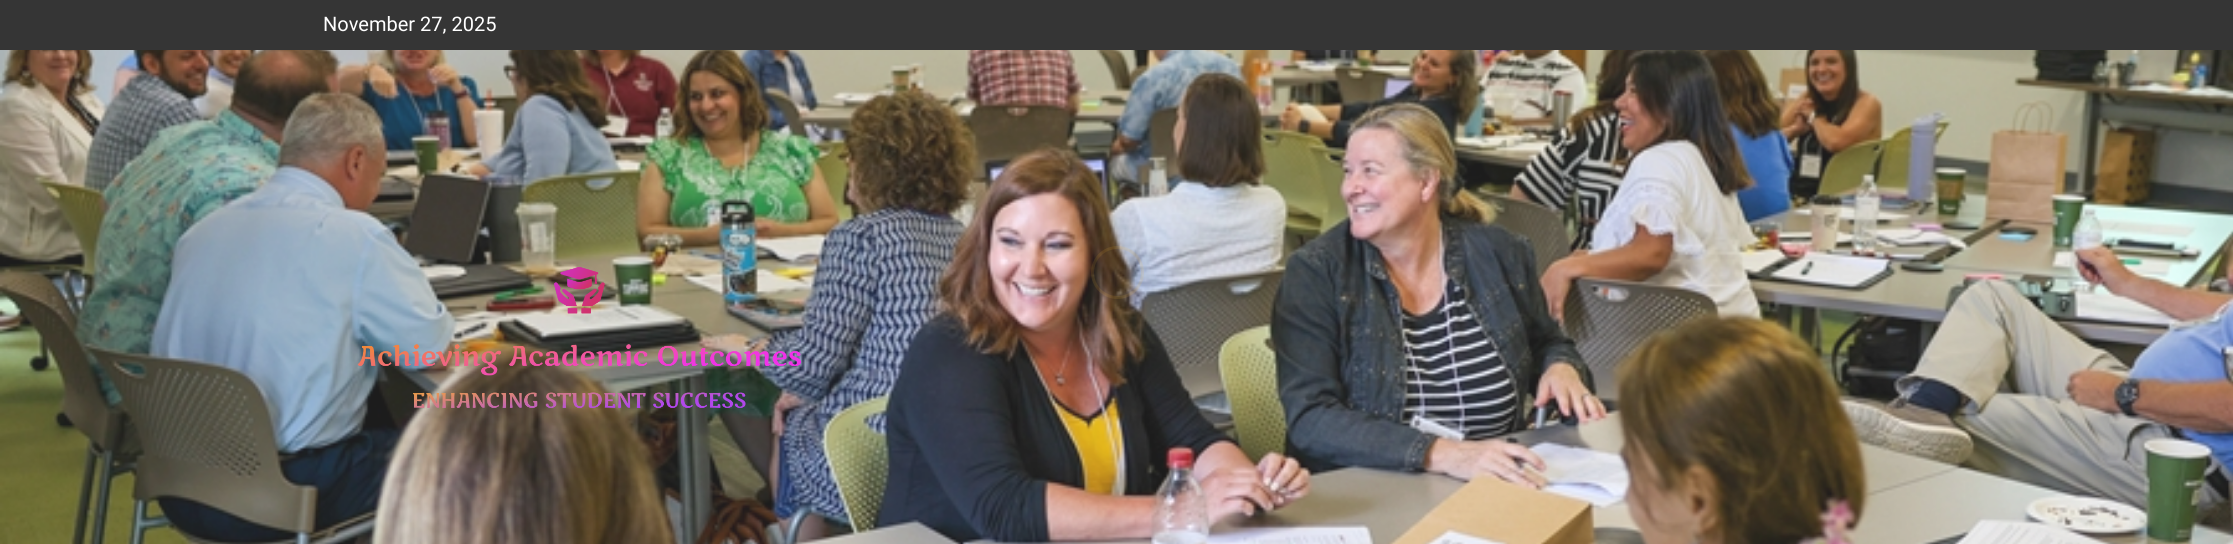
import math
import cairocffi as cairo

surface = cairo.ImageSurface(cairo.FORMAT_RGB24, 2233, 544)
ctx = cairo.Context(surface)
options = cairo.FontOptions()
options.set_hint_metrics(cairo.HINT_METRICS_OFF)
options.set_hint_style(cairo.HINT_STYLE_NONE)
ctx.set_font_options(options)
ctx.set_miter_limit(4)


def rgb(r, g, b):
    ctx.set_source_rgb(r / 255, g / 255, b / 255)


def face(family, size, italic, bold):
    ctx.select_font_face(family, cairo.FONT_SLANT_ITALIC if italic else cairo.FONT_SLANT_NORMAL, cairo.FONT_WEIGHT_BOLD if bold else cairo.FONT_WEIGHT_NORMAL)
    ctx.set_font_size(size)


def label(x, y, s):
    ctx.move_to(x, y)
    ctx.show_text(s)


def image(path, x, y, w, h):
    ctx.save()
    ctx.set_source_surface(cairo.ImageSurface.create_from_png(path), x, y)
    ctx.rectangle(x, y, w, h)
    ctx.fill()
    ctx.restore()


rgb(53, 53, 53)
ctx.paint()
face('Roboto', 20, 0, 0)
rgb(255, 255, 255)
label(323, 31, 'November 27, 2025')
image('image0.png', 0, 50, 2233, 494)
image('image1.png', 357, 267, 444, 141)
ctx.arc(1117.5, 272.5, 25, 0, 2 * math.pi)
ctx.set_source_rgba(1, 0.749, 0.247, 0.11)
ctx.set_line_width(3)
ctx.stroke()
surface.write_to_png('render.png')
